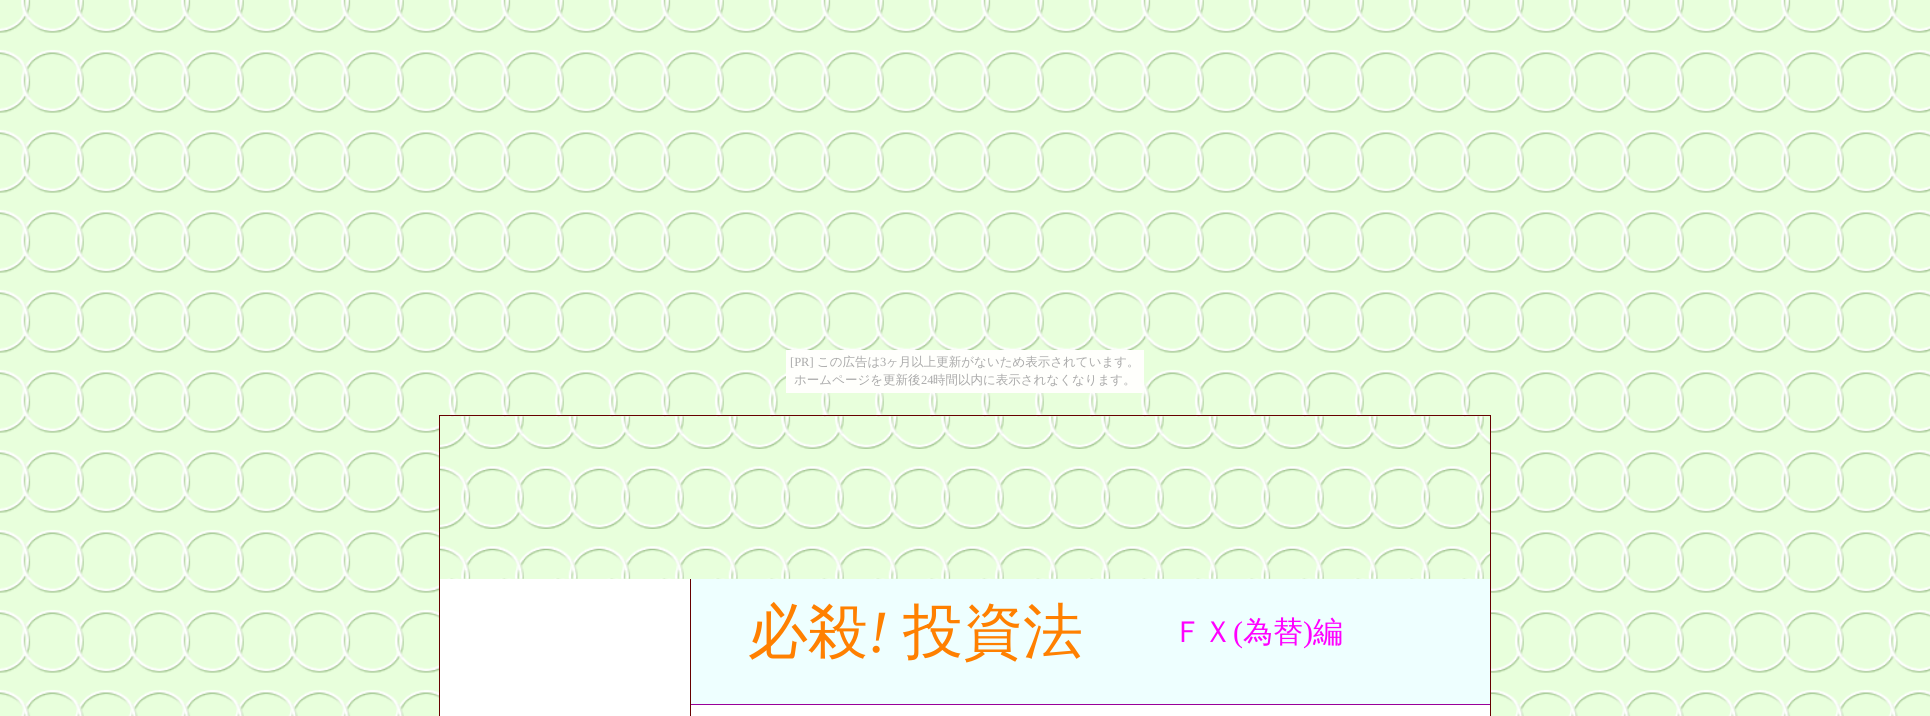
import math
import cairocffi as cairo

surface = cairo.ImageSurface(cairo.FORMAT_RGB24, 1930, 716)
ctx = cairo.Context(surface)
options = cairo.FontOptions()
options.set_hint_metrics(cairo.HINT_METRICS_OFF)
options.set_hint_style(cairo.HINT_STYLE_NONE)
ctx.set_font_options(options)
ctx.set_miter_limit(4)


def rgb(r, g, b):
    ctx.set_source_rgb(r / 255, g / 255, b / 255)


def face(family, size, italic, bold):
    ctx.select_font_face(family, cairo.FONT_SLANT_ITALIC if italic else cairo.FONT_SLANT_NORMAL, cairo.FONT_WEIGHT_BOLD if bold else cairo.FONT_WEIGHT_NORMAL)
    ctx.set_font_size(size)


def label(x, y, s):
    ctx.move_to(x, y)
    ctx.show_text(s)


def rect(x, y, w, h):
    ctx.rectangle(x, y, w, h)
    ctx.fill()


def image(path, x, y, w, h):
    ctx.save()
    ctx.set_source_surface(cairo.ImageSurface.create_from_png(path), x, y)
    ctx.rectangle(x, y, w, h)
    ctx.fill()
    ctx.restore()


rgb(255, 255, 255)
ctx.paint()
image('image0.png', 0, 0, 1930, 716)
rgb(255, 255, 252)
rect(786, 350, 358, 43)
face('Liberation Serif', 12.5, 0, 0)
rgb(170, 170, 170)
label(790, 366, '[PR]')
face('WenQuanYi Zen Hei Medium', 12.5, 0, 0)
label(817, 366, 'この広告は')
face('Liberation Serif', 12.5, 0, 0)
label(880, 366, '3')
face('WenQuanYi Zen Hei Medium', 12.5, 0, 0)
label(886, 366, 'ヶ月以上更新がないため表示されています。')
label(794, 384, 'ホームページを更新後')
face('Liberation Serif', 12.5, 0, 0)
label(921, 384, '24')
face('WenQuanYi Zen Hei Medium', 12.5, 0, 0)
label(933, 384, '時間以内に表示されなくなります。')
rgb(102, 0, 0)
rect(439, 415, 1052, 1)
rect(439, 416, 1, 300)
image('image1.png', 440, 416, 1050, 163)
rect(1490, 416, 1, 300)
rgb(255, 255, 255)
rect(440, 579, 250, 137)
rgb(102, 0, 0)
rect(690, 579, 1, 137)
rgb(255, 255, 255)
rect(691, 705, 799, 11)
rgb(238, 255, 255)
rect(691, 579, 799, 125)
face('WenQuanYi Zen Hei Medium', 60, 0, 0)
rgb(255, 128, 0)
label(748, 652, '必殺')
face('Liberation Serif', 60, 1, 0)
label(868, 652, '!')
face('WenQuanYi Zen Hei Medium', 60, 0, 0)
label(903, 652, '投資法')
face('WenQuanYi Zen Hei Medium', 30, 0, 0)
rgb(255, 0, 255)
label(1173, 642, 'ＦＸ')
face('Liberation Serif', 30, 0, 0)
label(1233, 642, '(')
face('WenQuanYi Zen Hei Medium', 30, 0, 0)
label(1243, 642, '為替')
face('Liberation Serif', 30, 0, 0)
label(1303, 642, ')')
face('WenQuanYi Zen Hei Medium', 30, 0, 0)
label(1313, 642, '編')
rgb(153, 0, 153)
rect(691, 704, 799, 1)
surface.write_to_png('render.png')
